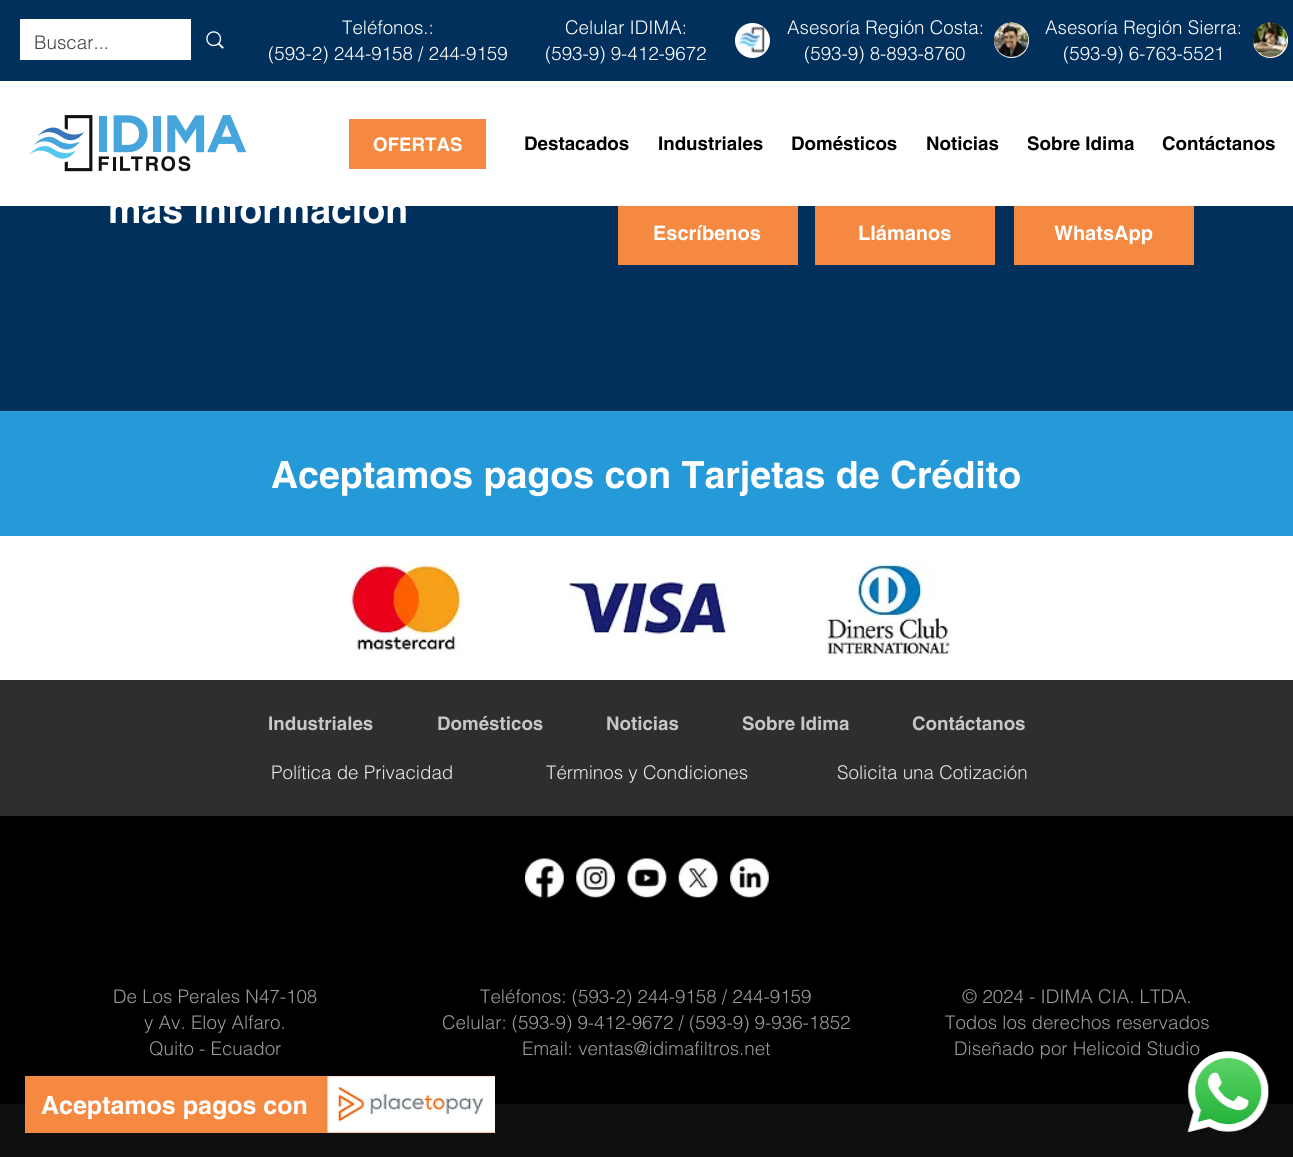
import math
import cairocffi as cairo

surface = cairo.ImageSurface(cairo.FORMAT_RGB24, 1293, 1157)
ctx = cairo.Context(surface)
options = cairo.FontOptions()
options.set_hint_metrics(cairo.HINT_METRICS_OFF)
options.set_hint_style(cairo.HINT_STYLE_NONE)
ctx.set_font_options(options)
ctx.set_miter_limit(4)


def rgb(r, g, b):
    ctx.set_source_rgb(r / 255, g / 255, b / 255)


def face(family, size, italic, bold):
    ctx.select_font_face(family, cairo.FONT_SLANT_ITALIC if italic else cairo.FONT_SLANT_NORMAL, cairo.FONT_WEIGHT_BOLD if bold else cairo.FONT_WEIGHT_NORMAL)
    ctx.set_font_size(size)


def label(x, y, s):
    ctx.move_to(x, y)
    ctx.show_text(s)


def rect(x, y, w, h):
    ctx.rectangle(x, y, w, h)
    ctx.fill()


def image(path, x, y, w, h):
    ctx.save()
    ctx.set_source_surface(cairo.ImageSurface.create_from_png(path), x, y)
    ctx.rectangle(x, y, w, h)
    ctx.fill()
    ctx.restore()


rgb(0, 48, 91)
ctx.paint()
rgb(255, 255, 255)
rect(20, 19, 171, 41)
face('helvetica Light', 18.75, 0, 0)
rgb(65, 65, 65)
label(34, 49, 'Buscar...')
image('image0.png', 206, 31, 18, 18)
rgb(255, 255, 255)
label(342, 34, 'Teléfonos.:')
label(268, 60, '(593-2) 244-9158 / 244-9159')
label(565, 34, 'Celular IDIMA:')
label(545, 60, '(593-9) 9-412-9672')
ctx.new_path()
ctx.arc(752.5, 40.5, 17.5, 0, 2 * math.pi)
ctx.fill()
image('image1.png', 736, 26, 29, 28)
label(787, 34, 'Asesoría Región Costa:')
label(804, 60, '(593-9) 8-893-8760')
ctx.new_path()
ctx.arc(1011.5, 40.5, 17.5, 0, 2 * math.pi)
ctx.fill()
image('image2.png', 994, 22, 35, 35)
label(1045, 34, 'Asesoría Región Sierra:')
label(1063, 60, '(593-9) 6-763-5521')
ctx.new_path()
ctx.arc(1270.5, 40.5, 17.5, 0, 2 * math.pi)
ctx.fill()
image('image3.png', 1252, 22, 35, 35)
rect(0, 81, 1293, 125)
image('image4.png', 29, 115, 218, 57)
rgb(246, 137, 65)
rect(349, 119, 137, 50)
face('helvetica', 18.75, 0, 1)
rgb(255, 255, 255)
label(373, 151, 'OFERTAS')
rgb(0, 0, 0)
label(524, 150, 'Destacados')
label(658, 150, 'Industriales')
label(791, 150, 'Domésticos')
label(926, 150, 'Noticias')
label(1027, 150, 'Sobre Idima')
label(1162, 150, 'Contáctanos')
face('helvetica', 37.5, 0, 1)
rgb(255, 255, 255)
label(108, 223, 'más información')
rgb(246, 137, 65)
rect(618, 206, 180, 59)
face('helvetica', 20, 0, 1)
rgb(255, 255, 255)
label(653, 240, 'Escríbenos')
rgb(246, 137, 65)
rect(815, 206, 180, 59)
rgb(255, 255, 255)
label(858, 240, 'Llámanos')
rgb(246, 137, 65)
rect(1014, 206, 180, 59)
rgb(255, 255, 255)
label(1054, 240, 'WhatsApp')
rgb(38, 154, 217)
rect(0, 411, 1293, 125)
face('helvetica', 37.5, 0, 1)
rgb(255, 255, 255)
label(271, 488, 'Aceptamos pagos con Tarjetas de Crédito')
rect(0, 536, 1293, 144)
image('image5.png', 349, 562, 115, 90)
image('image6.png', 565, 581, 161, 56)
image('image7.png', 826, 562, 125, 95)
rgb(47, 46, 46)
rect(0, 680, 1293, 136)
face('helvetica', 18.75, 0, 1)
rgb(199, 199, 199)
label(268, 730, 'Industriales')
label(437, 730, 'Domésticos')
label(606, 730, 'Noticias')
label(742, 730, 'Sobre Idima')
label(912, 730, 'Contáctanos')
face('helvetica Light', 18.75, 0, 0)
rgb(232, 230, 230)
label(271, 779, 'Política de Privacidad')
label(546, 779, 'Términos y Condiciones')
label(837, 779, 'Solicita una Cotización')
rgb(0, 0, 0)
rect(0, 816, 1293, 125)
image('image8.png', 525, 858, 39, 40)
image('image9.png', 576, 858, 39, 40)
image('image10.png', 627, 858, 40, 40)
image('image11.png', 678, 858, 40, 40)
image('image12.png', 730, 858, 39, 40)
rect(0, 941, 1293, 163)
rgb(153, 153, 151)
label(113, 1003, 'De Los Perales N47-108')
label(144, 1029, 'y Av. Eloy Alfaro.')
label(149, 1055, 'Quito - Ecuador')
label(480, 1003, 'Teléfonos: (593-2) 244-9158 / 244-9159')
label(442, 1029, 'Celular: (593-9) 9-412-9672 / (593-9) 9-936-1852')
label(522, 1055, 'Email: ventas@idimafiltros.net')
label(962, 1003, '© 2024 - IDIMA CIA. LTDA.')
label(945, 1029, 'Todos los derechos reservados')
label(954, 1055, 'Diseñado por Helicoid Studio')
rgb(15, 15, 15)
rect(0, 1104, 1293, 53)
rgb(246, 137, 65)
rect(25, 1076, 470, 57)
face('helvetica', 25, 0, 1)
rgb(255, 255, 255)
label(41, 1114, 'Aceptamos pagos con')
image('image13.png', 327, 1076, 168, 57)
image('image14.png', 1187, 1051, 83, 82)
surface.write_to_png('render.png')
